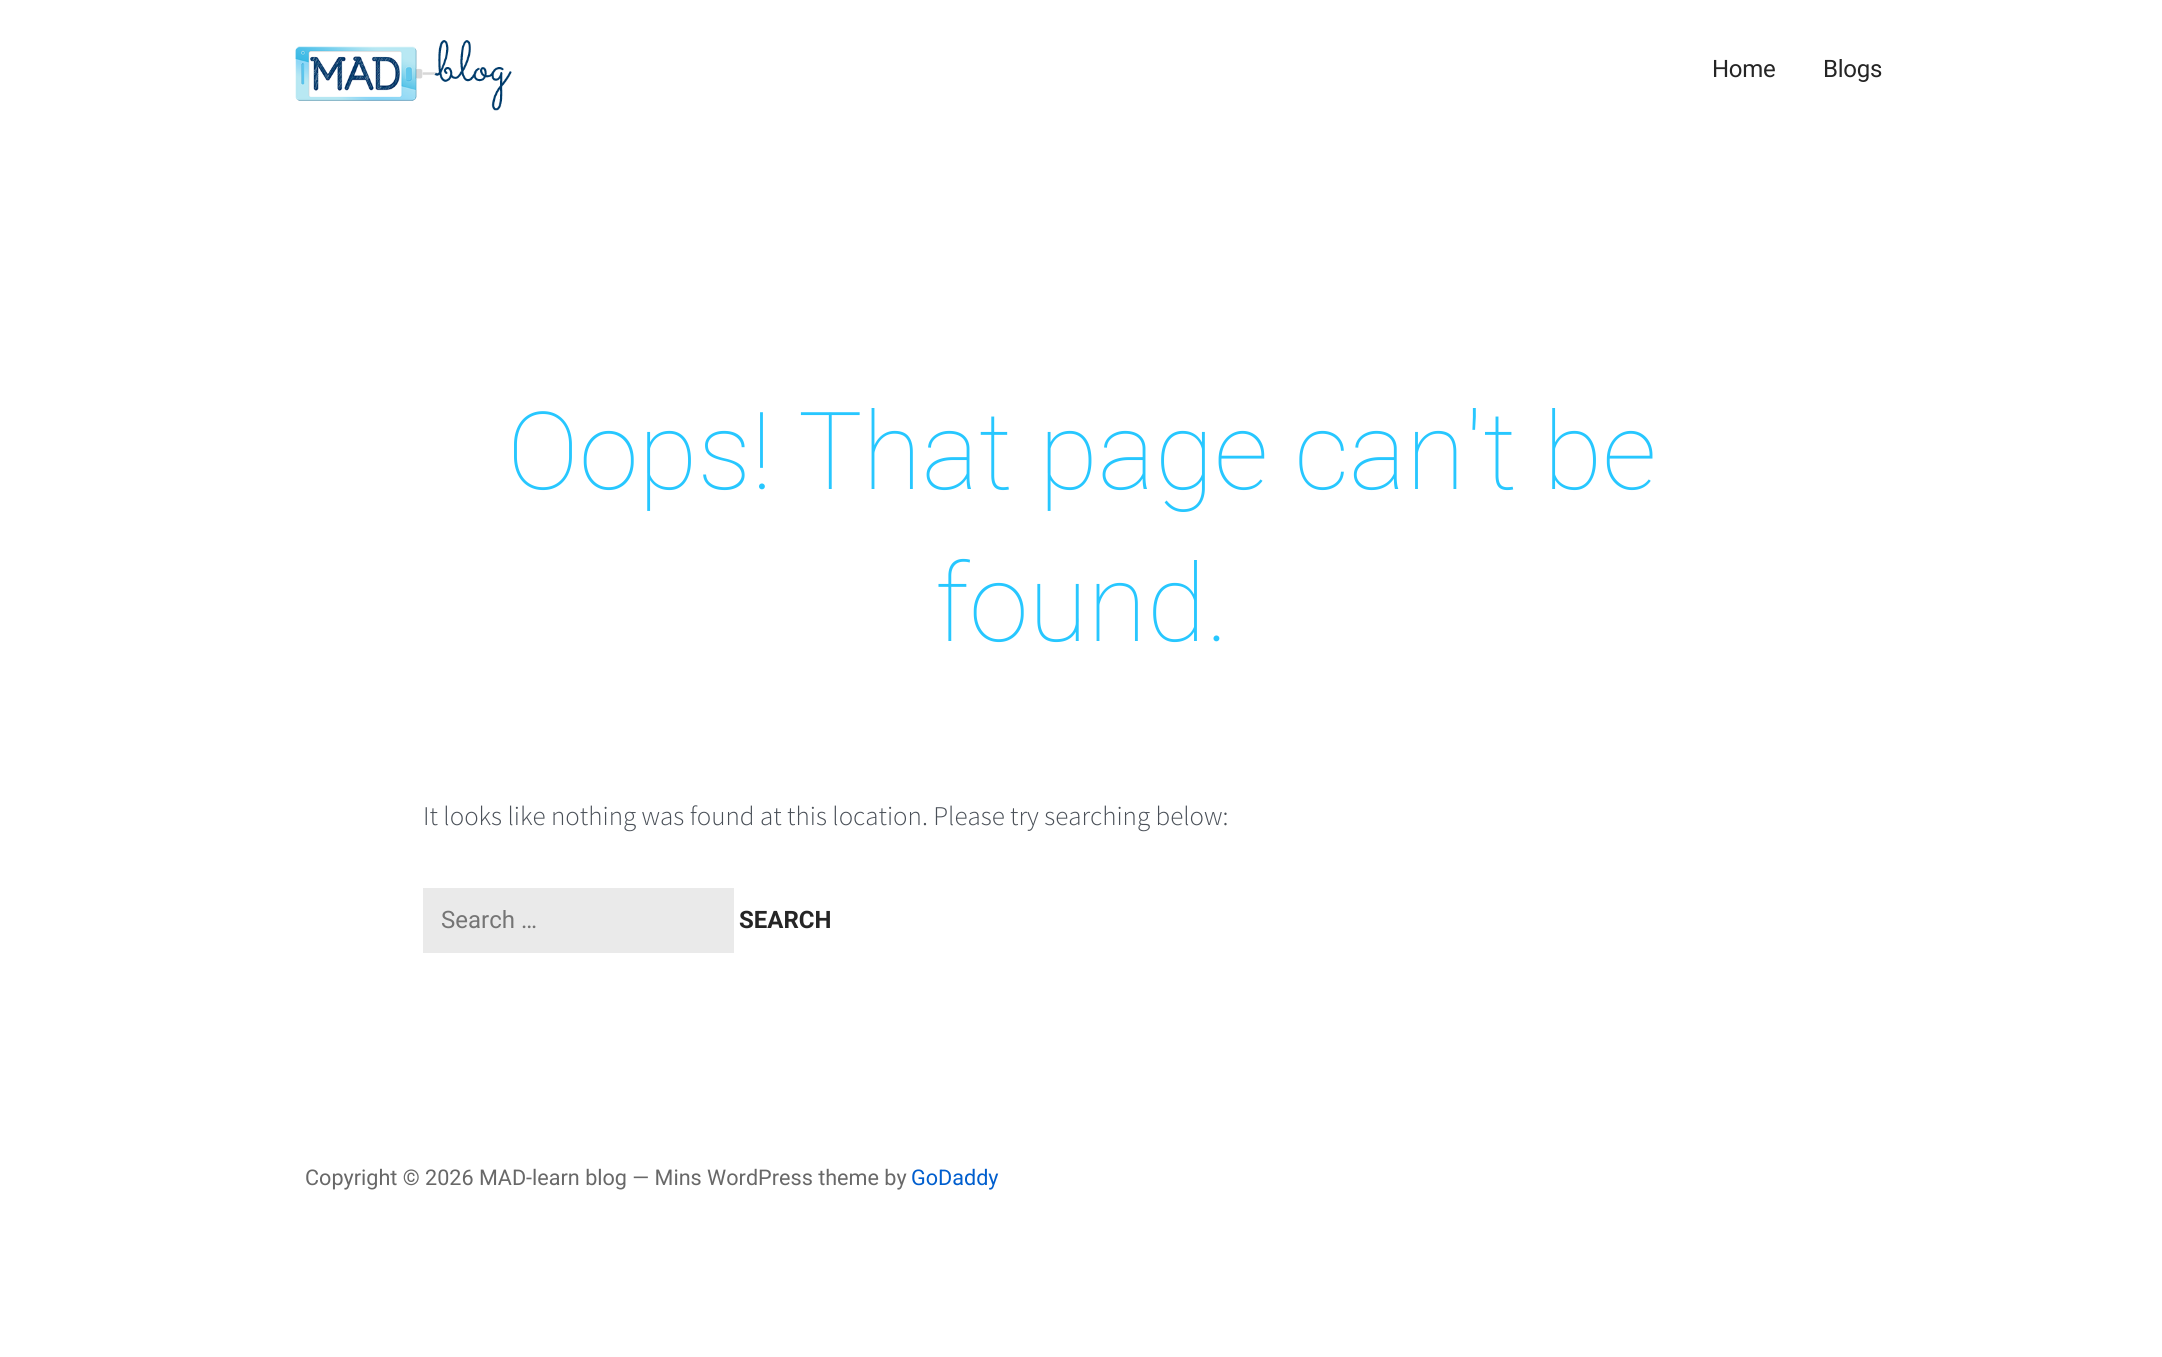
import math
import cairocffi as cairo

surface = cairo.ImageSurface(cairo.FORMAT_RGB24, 2162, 1357)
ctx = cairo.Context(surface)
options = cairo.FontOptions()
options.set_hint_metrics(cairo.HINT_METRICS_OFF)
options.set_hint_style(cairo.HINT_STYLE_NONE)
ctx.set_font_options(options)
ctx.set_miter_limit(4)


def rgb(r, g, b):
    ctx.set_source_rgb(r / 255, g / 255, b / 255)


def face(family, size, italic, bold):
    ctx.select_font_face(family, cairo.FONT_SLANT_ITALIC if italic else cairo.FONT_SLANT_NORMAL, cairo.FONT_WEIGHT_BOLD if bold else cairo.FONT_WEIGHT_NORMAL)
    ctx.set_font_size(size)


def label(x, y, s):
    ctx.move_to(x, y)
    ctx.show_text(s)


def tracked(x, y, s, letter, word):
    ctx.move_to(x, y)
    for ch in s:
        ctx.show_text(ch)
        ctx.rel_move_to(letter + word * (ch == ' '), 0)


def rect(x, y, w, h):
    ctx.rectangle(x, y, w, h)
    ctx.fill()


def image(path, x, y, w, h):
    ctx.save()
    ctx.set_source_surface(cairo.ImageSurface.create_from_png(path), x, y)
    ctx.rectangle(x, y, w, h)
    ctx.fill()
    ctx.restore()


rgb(255, 255, 255)
ctx.paint()
image('image0.png', 295, 40, 217, 71)
face('Roboto', 24, 0, 0)
rgb(37, 37, 37)
tracked(1712, 77, 'Home', -0.25, 0)
tracked(1823, 77, 'Blogs', -0.25, 0)
face('Roboto Thin', 108, 0, 0)
rgb(39, 199, 255)
label(507, 489, 'Oops! That page can\'t be')
label(935, 641, 'found.')
face('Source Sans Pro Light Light', 27, 0, 0)
rgb(73, 79, 87)
label(423, 825, 'It looks like nothing was found at this location. Please try searching below:')
rgb(234, 234, 234)
rect(423, 888, 311, 65)
face('Roboto', 24, 0, 0)
rgb(117, 117, 117)
label(441, 928, 'Search …')
face('Roboto', 24, 0, 1)
rgb(37, 37, 37)
label(739, 928, 'SEARCH')
face('Roboto', 21.6, 0, 0)
rgb(104, 104, 104)
label(305, 1185, 'Copyright © 2026 MAD-learn blog — Mins WordPress theme by')
rgb(0, 94, 206)
label(911, 1185, 'GoDaddy')
surface.write_to_png('render.png')
